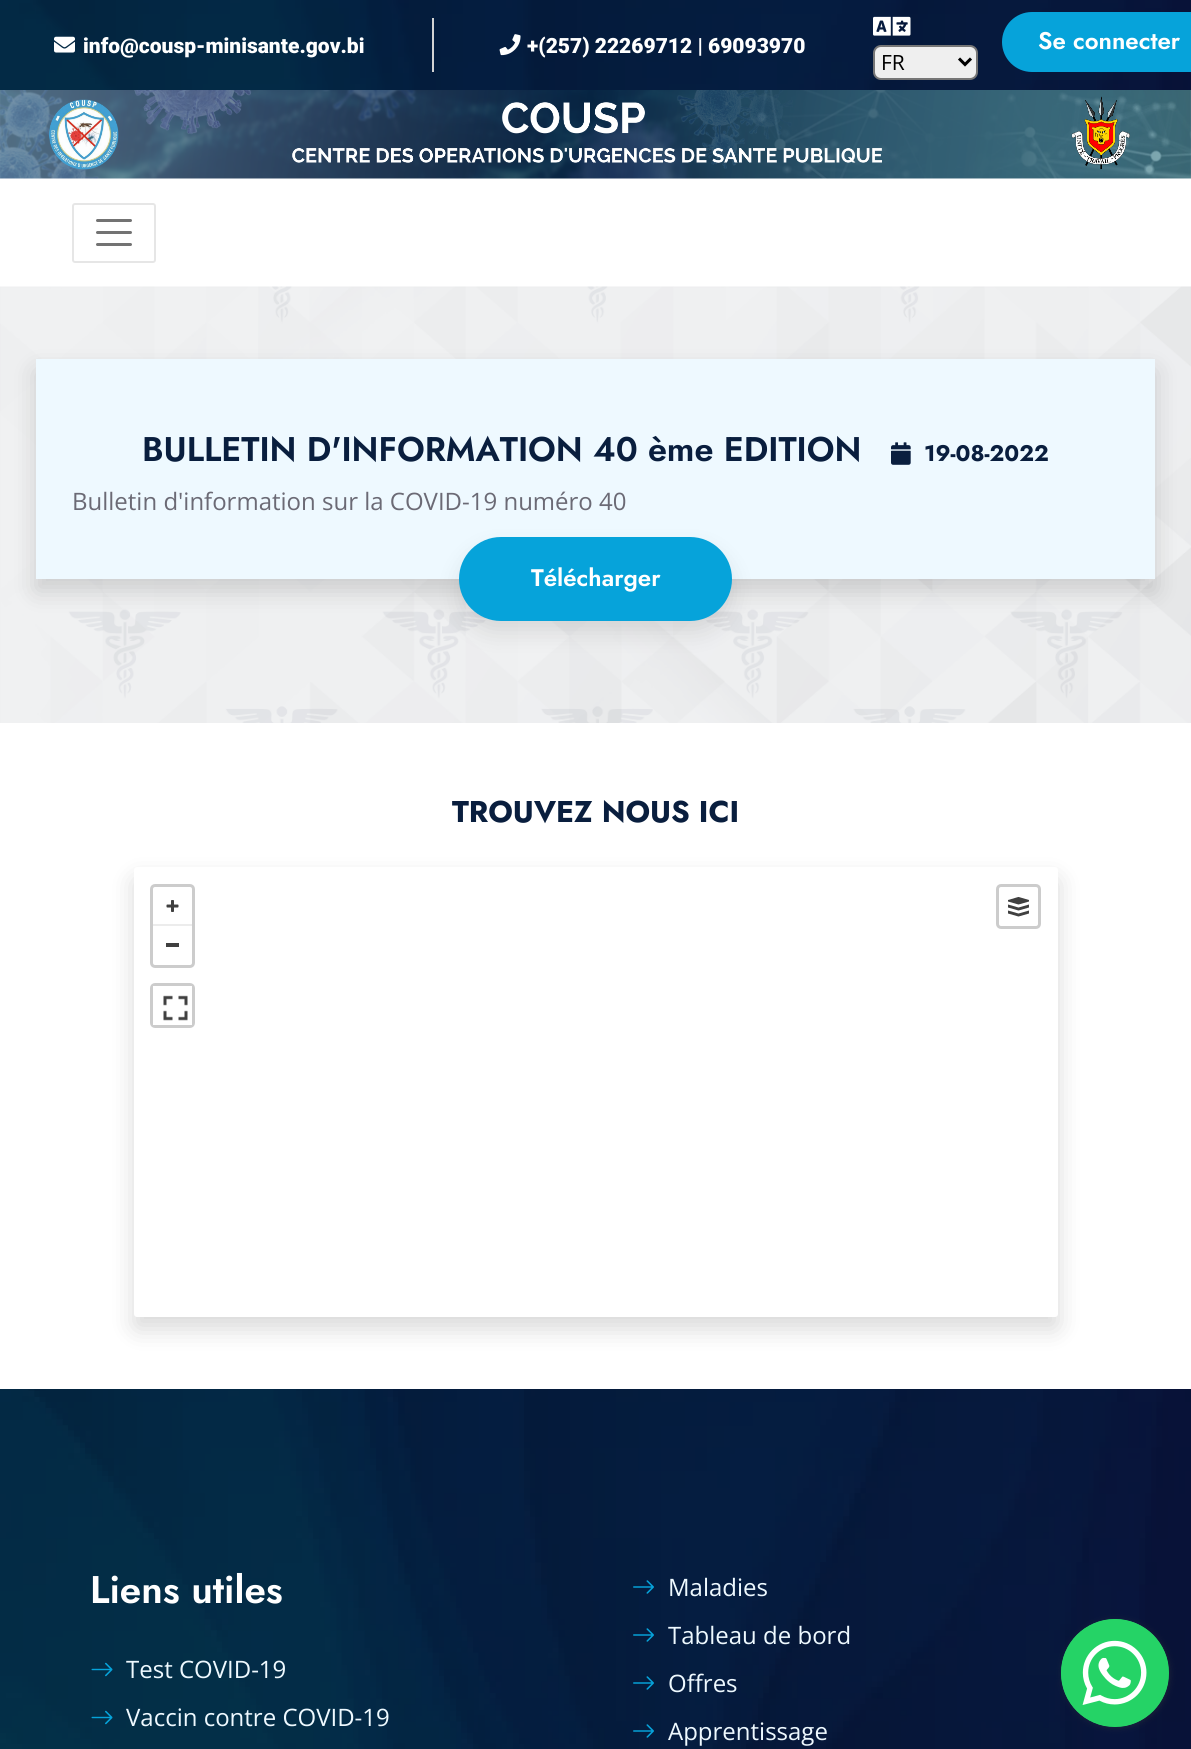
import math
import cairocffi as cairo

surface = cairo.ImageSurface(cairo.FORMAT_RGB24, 1191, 1749)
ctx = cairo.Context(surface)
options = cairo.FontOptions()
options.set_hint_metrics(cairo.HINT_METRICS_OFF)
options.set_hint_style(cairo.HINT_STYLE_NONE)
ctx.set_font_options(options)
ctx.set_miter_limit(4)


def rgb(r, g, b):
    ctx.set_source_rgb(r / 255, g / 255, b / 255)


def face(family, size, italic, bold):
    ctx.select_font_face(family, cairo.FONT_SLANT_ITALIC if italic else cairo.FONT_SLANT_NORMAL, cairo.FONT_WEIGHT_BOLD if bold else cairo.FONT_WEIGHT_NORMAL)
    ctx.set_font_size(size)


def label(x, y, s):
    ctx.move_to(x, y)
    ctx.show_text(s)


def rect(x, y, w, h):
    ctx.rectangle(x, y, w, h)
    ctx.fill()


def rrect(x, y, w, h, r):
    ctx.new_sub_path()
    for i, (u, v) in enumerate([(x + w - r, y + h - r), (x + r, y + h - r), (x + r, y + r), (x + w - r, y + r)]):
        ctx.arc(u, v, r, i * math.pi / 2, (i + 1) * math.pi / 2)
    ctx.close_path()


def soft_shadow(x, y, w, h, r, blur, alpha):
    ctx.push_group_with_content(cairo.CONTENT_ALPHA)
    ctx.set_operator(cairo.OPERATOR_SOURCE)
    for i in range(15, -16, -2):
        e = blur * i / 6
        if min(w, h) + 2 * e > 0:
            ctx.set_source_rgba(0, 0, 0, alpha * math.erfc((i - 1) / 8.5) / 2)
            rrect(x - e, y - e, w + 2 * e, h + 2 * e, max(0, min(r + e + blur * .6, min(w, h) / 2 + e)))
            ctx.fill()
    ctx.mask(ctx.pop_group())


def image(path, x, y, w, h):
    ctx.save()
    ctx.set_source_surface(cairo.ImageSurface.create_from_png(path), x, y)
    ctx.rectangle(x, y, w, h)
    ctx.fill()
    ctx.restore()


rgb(255, 255, 255)
ctx.paint()
image('image0.png', 0, 0, 1191, 90)
image('image1.png', 54, 36, 21, 17)
face('Roboto Black', 21, 0, 0)
rgb(255, 255, 255)
label(83, 53, 'info@cousp-minisante.gov.bi')
rgb(211, 211, 211)
rect(432, 18, 2, 54)
image('image2.png', 499, 34, 22, 22)
rgb(255, 255, 255)
label(527, 53, '+(257) 22269712 | 69093970')
rgb(6, 163, 218)
rrect(1002, 12, 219, 60, 30)
ctx.fill()
face('Jost SemiBold', 24, 0, 0)
rgb(255, 255, 255)
label(1038, 49, 'Se connecter')
image('image3.png', 873, 16, 38, 20)
rgb(239, 239, 239)
rrect(874, 46, 103, 33, 7)
ctx.fill_preserve()
rgb(118, 118, 118)
ctx.stroke()
ctx.new_path()
ctx.move_to(959, 58.5)
ctx.line_to(965, 64.5)
ctx.line_to(971, 58.5)
rgb(0, 0, 0)
ctx.set_line_width(3)
ctx.stroke()
face('Open Sans', 21, 0, 0)
label(881, 70, 'FR')
image('image4.png', 0, 90, 1191, 89)
rrect(73, 204, 82, 58, 2)
rgb(230, 230, 230)
ctx.set_line_width(2)
ctx.stroke()
ctx.new_path()
ctx.move_to(97.5, 220.5)
ctx.line_to(130.5, 220.5)
ctx.move_to(97.5, 232.5)
ctx.line_to(130.5, 232.5)
ctx.move_to(97.5, 244.5)
ctx.line_to(130.5, 244.5)
rgb(115, 115, 115)
ctx.set_line_width(3)
ctx.set_line_cap(cairo.LINE_CAP_ROUND)
ctx.stroke()
image('image5.png', 0, 286, 1191, 437)
rgb(0, 0, 0)
soft_shadow(36, 371, 1119, 220, 0, 12, 0.15)
rgb(238, 249, 255)
rect(36, 359, 1119, 220)
face('Jost SemiBold', 34.2, 0, 0)
rgb(9, 30, 62)
label(142, 461, 'BULLETIN D\'INFORMATION 40 ème EDITION')
image('image6.png', 891, 442, 20, 23)
face('Jost', 22.5, 0, 1)
label(924, 461, '19-08-2022')
face('Open Sans', 24, 0, 0)
rgb(107, 106, 117)
label(72, 510, 'Bulletin d\'information sur la COVID-19 numéro 40')
rgb(0, 0, 0)
soft_shadow(459, 549, 273, 84, 42, 11, 0.1)
rgb(6, 163, 218)
rrect(459, 537, 273, 84, 42)
ctx.fill()
face('Jost SemiBold', 24, 0, 0)
rgb(255, 255, 255)
label(531, 586, 'Télécharger')
face('Jost', 30, 0, 1)
rgb(9, 30, 62)
label(452, 822, 'TROUVEZ NOUS ICI')
rgb(0, 0, 0)
soft_shadow(134, 879, 924, 450, 3, 12, 0.15)
rgb(255, 255, 255)
rrect(135, 868, 922, 448, 2)
ctx.fill_preserve()
ctx.set_line_width(2)
ctx.set_line_cap(cairo.LINE_CAP_BUTT)
ctx.stroke()
rrect(151.5, 885.5, 42, 81, 3.5)
rgb(204, 204, 204)
ctx.set_line_width(3)
ctx.stroke()
image('image7.png', 166, 900, 13, 12)
rgb(236, 236, 236)
rect(153, 924, 39, 2)
rgb(64, 64, 64)
rect(166, 943, 13, 4)
rrect(151.5, 984.5, 42, 42, 3.5)
rgb(204, 204, 204)
ctx.stroke()
rgb(255, 255, 255)
rect(153, 986, 39, 39)
image('image8.png', 163, 995, 25, 26)
rrect(997.5, 885.5, 42, 42, 3.5)
rgb(204, 204, 204)
ctx.stroke()
image('image9.png', 1008, 897, 21, 20)
image('image10.png', 0, 1389, 1191, 360)
face('Jost SemiBold', 38.5, 0, 0)
rgb(255, 255, 255)
label(90, 1603, 'Liens utiles')
image('image11.png', 91, 1662, 22, 15)
face('Open Sans', 24, 0, 0)
rgb(238, 249, 255)
label(126, 1678, 'Test COVID-19')
image('image12.png', 91, 1710, 22, 15)
label(126, 1726, 'Vaccin contre COVID-19')
image('image13.png', 633, 1580, 21, 14)
label(668, 1596, 'Maladies')
image('image14.png', 633, 1628, 21, 14)
label(668, 1644, 'Tableau de bord')
image('image15.png', 633, 1676, 21, 14)
label(668, 1692, 'Offres')
image('image16.png', 633, 1724, 21, 14)
label(668, 1740, 'Apprentissage')
rgb(60, 60, 60)
soft_shadow(1062, 1620, 108, 108, 54, 3, 0.4)
rgb(37, 211, 102)
ctx.arc(1115, 1673, 54, 0, 2 * math.pi)
ctx.fill()
image('image17.png', 1061, 1619, 108, 108)
surface.write_to_png('render.png')
